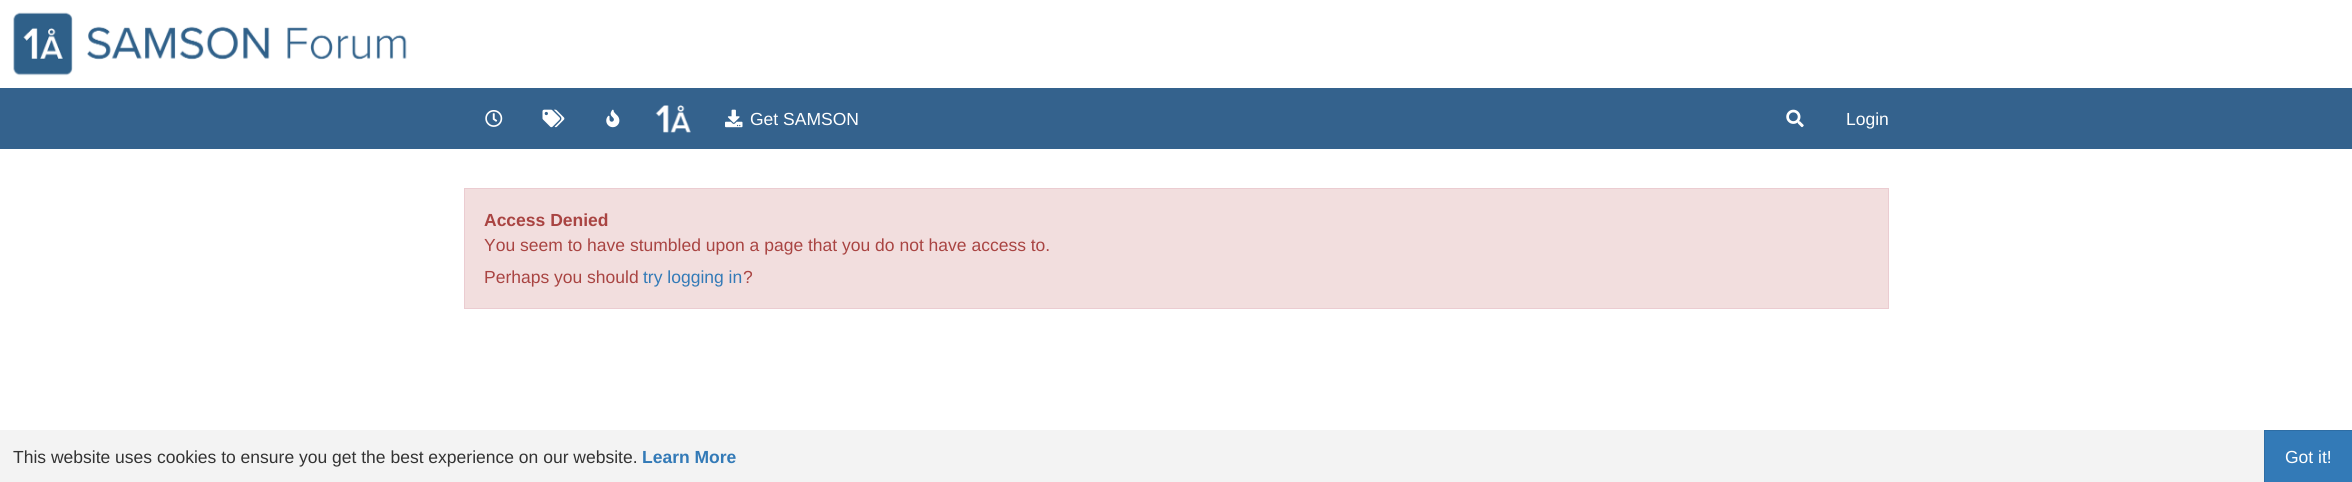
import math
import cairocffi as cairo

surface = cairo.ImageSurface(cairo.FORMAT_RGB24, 2352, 482)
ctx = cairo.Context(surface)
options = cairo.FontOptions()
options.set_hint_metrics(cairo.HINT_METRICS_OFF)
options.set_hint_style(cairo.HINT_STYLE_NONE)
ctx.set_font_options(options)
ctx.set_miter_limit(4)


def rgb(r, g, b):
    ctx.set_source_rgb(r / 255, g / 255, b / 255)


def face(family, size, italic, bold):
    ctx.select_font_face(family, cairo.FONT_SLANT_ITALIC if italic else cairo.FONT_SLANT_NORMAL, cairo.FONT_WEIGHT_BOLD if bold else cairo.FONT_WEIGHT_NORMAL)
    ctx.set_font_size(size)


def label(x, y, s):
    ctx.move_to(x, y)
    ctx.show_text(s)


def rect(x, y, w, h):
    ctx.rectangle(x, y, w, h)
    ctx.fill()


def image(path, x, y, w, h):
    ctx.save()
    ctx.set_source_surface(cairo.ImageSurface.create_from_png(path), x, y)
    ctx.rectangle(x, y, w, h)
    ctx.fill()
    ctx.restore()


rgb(255, 255, 255)
ctx.paint()
rgb(52, 98, 141)
rect(0, 88, 2352, 61)
image('image0.png', 13, 12, 394, 64)
image('image1.png', 485, 110, 18, 17)
image('image2.png', 542, 109, 23, 19)
image('image3.png', 606, 109, 14, 19)
image('image4.png', 655, 105, 36, 28)
image('image5.png', 725, 109, 18, 19)
face('Liberation Sans', 17.5, 0, 0)
rgb(255, 255, 255)
label(750, 125, 'Get SAMSON')
image('image6.png', 1786, 109, 18, 19)
label(1846, 125, 'Login')
rgb(242, 222, 222)
ctx.rectangle(464.5, 188.5, 1424, 120)
ctx.fill_preserve()
rgb(235, 204, 209)
ctx.set_line_width(1)
ctx.stroke()
face('Liberation Sans', 17.5, 0, 1)
rgb(169, 68, 66)
label(484, 226, 'Access Denied')
face('Liberation Sans', 17.5, 0, 0)
label(484, 251, 'You seem to have stumbled upon a page that you do not have access to.')
label(484, 283, 'Perhaps you should')
rgb(51, 122, 183)
label(643, 283, 'try logging in')
rgb(169, 68, 66)
label(743, 283, '?')
rgb(243, 243, 243)
rect(0, 430, 2264, 52)
rgb(51, 51, 51)
label(13, 463, 'This website uses cookies to ensure you get the best experience on our website.')
face('Liberation Sans', 17.5, 0, 1)
rgb(51, 122, 183)
label(642, 463, 'Learn More')
ctx.rectangle(2264.5, 430.5, 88, 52)
ctx.fill_preserve()
rgb(46, 109, 164)
ctx.stroke()
face('Liberation Sans', 17.5, 0, 0)
rgb(255, 255, 255)
label(2285, 463, 'Got it!')
surface.write_to_png('render.png')
